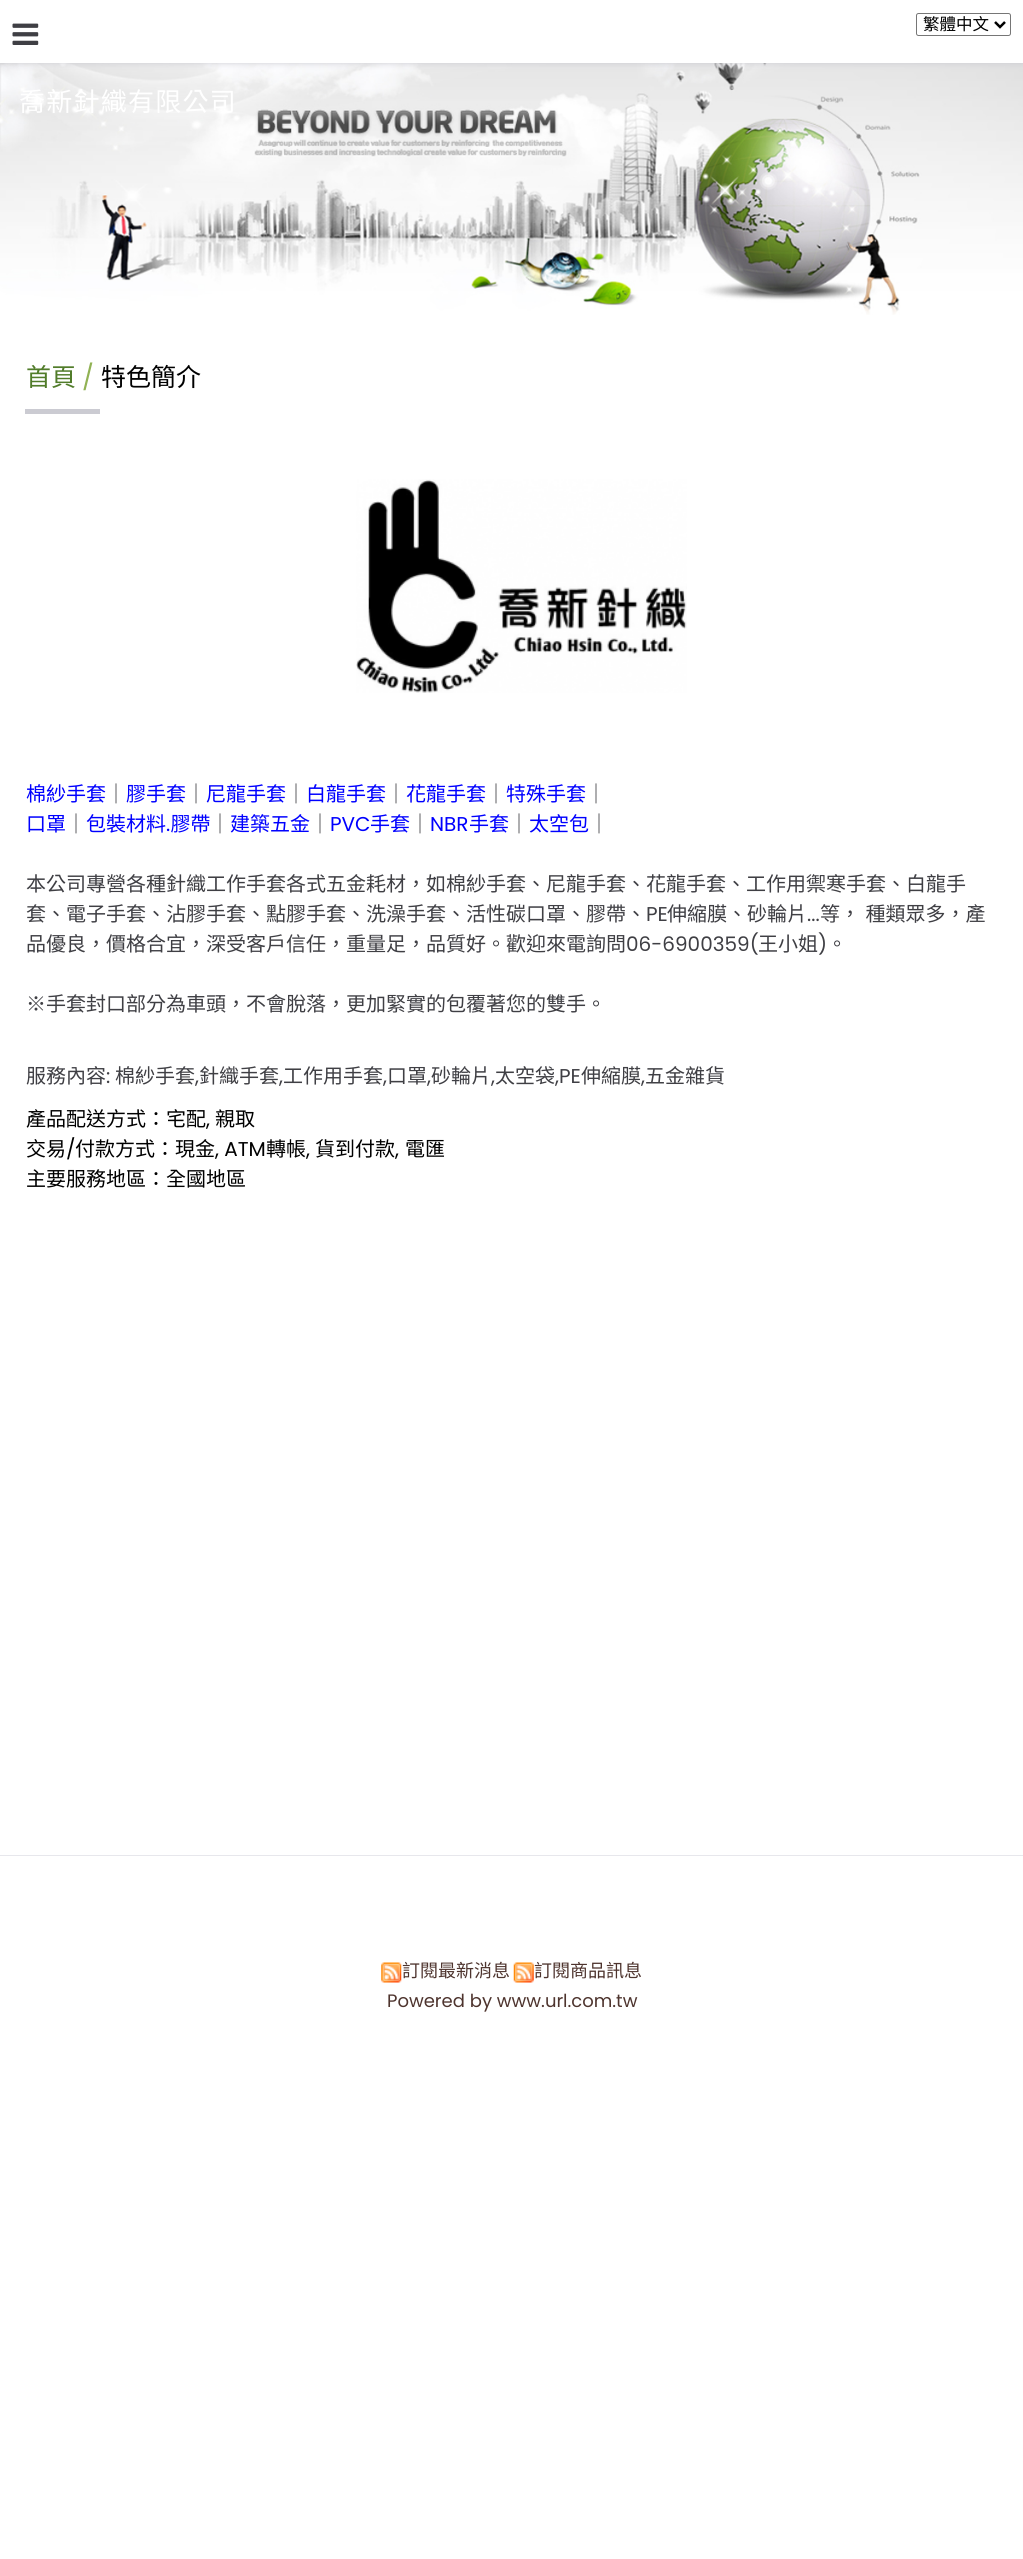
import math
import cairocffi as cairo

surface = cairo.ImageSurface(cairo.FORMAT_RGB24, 1023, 2559)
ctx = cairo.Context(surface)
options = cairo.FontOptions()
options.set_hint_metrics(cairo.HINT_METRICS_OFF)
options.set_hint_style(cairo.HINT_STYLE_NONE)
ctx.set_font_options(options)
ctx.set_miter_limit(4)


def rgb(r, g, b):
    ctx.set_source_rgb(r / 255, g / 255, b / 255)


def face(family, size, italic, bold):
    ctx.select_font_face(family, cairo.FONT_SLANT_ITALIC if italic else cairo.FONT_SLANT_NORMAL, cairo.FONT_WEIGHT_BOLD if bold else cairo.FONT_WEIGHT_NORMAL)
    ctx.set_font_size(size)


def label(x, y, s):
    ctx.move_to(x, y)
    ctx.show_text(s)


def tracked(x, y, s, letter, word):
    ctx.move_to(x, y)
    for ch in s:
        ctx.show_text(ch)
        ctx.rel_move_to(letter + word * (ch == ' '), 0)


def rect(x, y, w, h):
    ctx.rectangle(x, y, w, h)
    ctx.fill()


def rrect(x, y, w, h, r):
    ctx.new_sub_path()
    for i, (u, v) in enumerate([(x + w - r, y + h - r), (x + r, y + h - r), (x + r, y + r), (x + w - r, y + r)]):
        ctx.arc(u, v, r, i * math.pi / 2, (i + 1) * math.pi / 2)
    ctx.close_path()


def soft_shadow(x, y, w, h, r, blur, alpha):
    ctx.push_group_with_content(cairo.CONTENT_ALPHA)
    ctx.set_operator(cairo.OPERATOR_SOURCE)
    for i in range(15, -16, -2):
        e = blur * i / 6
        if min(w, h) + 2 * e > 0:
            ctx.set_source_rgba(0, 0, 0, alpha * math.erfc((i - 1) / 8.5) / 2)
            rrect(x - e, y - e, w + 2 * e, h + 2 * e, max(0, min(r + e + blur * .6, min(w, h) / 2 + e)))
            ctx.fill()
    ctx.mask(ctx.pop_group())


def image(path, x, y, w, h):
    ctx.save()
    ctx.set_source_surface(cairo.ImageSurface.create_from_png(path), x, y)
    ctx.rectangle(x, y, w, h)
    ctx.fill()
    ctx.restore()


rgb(255, 255, 255)
ctx.paint()
image('image1.png', 0, 63, 1023, 252)
rgb(203, 203, 210)
soft_shadow(1, 3, 1022, 60, 0, 3, 1)
rgb(255, 255, 255)
rect(0, 0, 1023, 63)
image('image0.png', 12, 23, 27, 22)
rrect(916.5, 13.5, 94, 22, 2)
rgb(118, 118, 118)
ctx.set_line_width(1)
ctx.stroke()
ctx.new_path()
ctx.move_to(995, 22)
ctx.line_to(1000, 27)
ctx.line_to(1005, 22)
rgb(0, 0, 0)
ctx.set_line_width(2.5)
ctx.stroke()
face('Noto Sans CJK TC', 16.5, 0, 0)
label(923, 30, '繁體中文')
face('Noto Sans CJK TC', 26, 0, 0)
rgb(255, 255, 255)
tracked(19, 111, '喬新針織有限公司', 1.25, 0)
face('Noto Sans CJK TC', 25, 0, 0)
rgb(81, 124, 42)
label(26, 386, '首頁')
face('Poppins', 25, 0, 0)
rgb(145, 178, 84)
label(82, 386, '/')
face('Noto Sans CJK TC', 25, 0, 0)
rgb(0, 0, 0)
label(101, 386, '特色簡介')
rgb(203, 203, 210)
rect(25, 409, 75, 5)
image('image2.png', 356, 479, 331, 214)
face('Noto Sans CJK TC', 20, 0, 0)
rgb(0, 0, 255)
label(26, 801, '棉紗手套')
rgb(63, 63, 68)
label(106, 801, '｜')
rgb(0, 0, 255)
label(126, 801, '膠手套')
rgb(63, 63, 68)
label(186, 801, '｜')
rgb(0, 0, 255)
label(206, 801, '尼龍手套')
rgb(63, 63, 68)
label(286, 801, '｜')
rgb(0, 0, 255)
label(306, 801, '白龍手套')
rgb(63, 63, 68)
label(386, 801, '｜')
rgb(0, 0, 255)
label(406, 801, '花龍手套')
rgb(63, 63, 68)
label(486, 801, '｜')
rgb(0, 0, 255)
label(506, 801, '特殊手套')
rgb(63, 63, 68)
label(586, 801, '｜')
rgb(0, 0, 255)
label(26, 831, '口罩')
rgb(63, 63, 68)
label(66, 831, '｜')
rgb(0, 0, 255)
label(86, 831, '包裝材料 膠帶')
rgb(63, 63, 68)
label(210, 831, '｜')
rgb(0, 0, 255)
label(230, 831, '建築五金')
rgb(63, 63, 68)
label(310, 831, '｜')
face('Poppins', 20, 0, 0)
rgb(0, 0, 255)
label(330, 831, 'PVC')
face('Noto Sans CJK TC', 20, 0, 0)
label(370, 831, '手套')
rgb(63, 63, 68)
label(410, 831, '｜')
face('Poppins', 20, 0, 0)
rgb(0, 0, 255)
label(430, 831, 'NBR')
face('Noto Sans CJK TC', 20, 0, 0)
label(469, 831, '手套')
rgb(63, 63, 68)
label(509, 831, '｜')
rgb(0, 0, 255)
label(529, 831, '太空包')
rgb(63, 63, 68)
label(589, 831, '｜')
face('Poppins', 20, 0, 0)
rgb(0, 0, 255)
label(166, 831, '.')
face('Noto Sans CJK TC', 20, 0, 0)
rgb(63, 63, 68)
label(26, 891, '本公司專營各種針織工作手套各式五金耗材，如棉紗手套、尼龍手套、花龍手套、工作用禦寒手套、白龍手')
label(26, 921, '套、電子手套、沾膠手套、點膠手套、洗澡手套、活性碳口罩、膠帶、')
face('Poppins', 20, 0, 0)
label(646, 921, 'PE')
face('Noto Sans CJK TC', 20, 0, 0)
label(667, 921, '伸縮膜、砂輪片')
face('Poppins', 20, 0, 0)
label(807, 921, '...')
face('Noto Sans CJK TC', 20, 0, 0)
tracked(820, 921, '等， 種類眾多，產', 0, 1)
label(26, 951, '品優良，價格合宜，深受客戶信任，重量足，品質好。歡迎來電詢問')
face('Poppins', 20, 0, 0)
label(626, 951, '06-6900359(')
face('Noto Sans CJK TC', 20, 0, 0)
label(758, 951, '王小姐')
face('Poppins', 20, 0, 0)
label(818, 951, ')')
face('Noto Sans CJK TC', 20, 0, 0)
label(827, 951, '。')
label(26, 1011, '※手套封口部分為車頭，不會脫落，更加緊實的包覆著您的雙手。')
label(26, 1083, '服務內容')
face('Poppins', 20, 0, 0)
label(106, 1083, ':')
face('Noto Sans CJK TC', 20, 0, 0)
label(115, 1083, '棉紗手套')
face('Poppins', 20, 0, 0)
label(195, 1083, ',')
face('Noto Sans CJK TC', 20, 0, 0)
label(199, 1083, '針織手套')
face('Poppins', 20, 0, 0)
label(279, 1083, ',')
face('Noto Sans CJK TC', 20, 0, 0)
label(283, 1083, '工作用手套')
face('Poppins', 20, 0, 0)
label(383, 1083, ',')
face('Noto Sans CJK TC', 20, 0, 0)
label(387, 1083, '口罩')
face('Poppins', 20, 0, 0)
label(427, 1083, ',')
face('Noto Sans CJK TC', 20, 0, 0)
label(431, 1083, '砂輪片')
face('Poppins', 20, 0, 0)
label(491, 1083, ',')
face('Noto Sans CJK TC', 20, 0, 0)
label(495, 1083, '太空袋')
face('Poppins', 20, 0, 0)
label(555, 1083, ',PE')
face('Noto Sans CJK TC', 20, 0, 0)
label(581, 1083, '伸縮膜')
face('Poppins', 20, 0, 0)
label(641, 1083, ',')
face('Noto Sans CJK TC', 20, 0, 0)
label(645, 1083, '五金雜貨')
rgb(0, 0, 0)
label(26, 1126, '產品配送方式：宅配')
face('Poppins', 20, 0, 0)
label(206, 1126, ',')
face('Noto Sans CJK TC', 20, 0, 0)
label(215, 1126, '親取')
label(26, 1156, '交易')
face('Poppins', 20, 0, 0)
label(66, 1156, '/')
face('Noto Sans CJK TC', 20, 0, 0)
label(75, 1156, '付款方式：現金')
face('Poppins', 20, 0, 0)
label(215, 1156, ', ATM')
face('Noto Sans CJK TC', 20, 0, 0)
label(266, 1156, '轉帳')
face('Poppins', 20, 0, 0)
label(306, 1156, ',')
face('Noto Sans CJK TC', 20, 0, 0)
label(315, 1156, '貨到付款')
face('Poppins', 20, 0, 0)
label(395, 1156, ',')
face('Noto Sans CJK TC', 20, 0, 0)
label(405, 1156, '電匯')
label(26, 1186, '主要服務地區：全國地區')
rgb(231, 231, 236)
rect(0, 1855, 1023, 1)
image('image3.png', 381, 1962, 21, 21)
face('Noto Sans CJK TC', 18, 0, 0)
rgb(78, 52, 46)
label(402, 1977, '訂閱最新消息')
image('image4.png', 513, 1962, 21, 21)
label(534, 1977, '訂閱商品訊息')
face('Poppins', 18, 0, 0)
label(387, 2007, 'Powered by www.url.com.tw')
surface.write_to_png('render.png')
